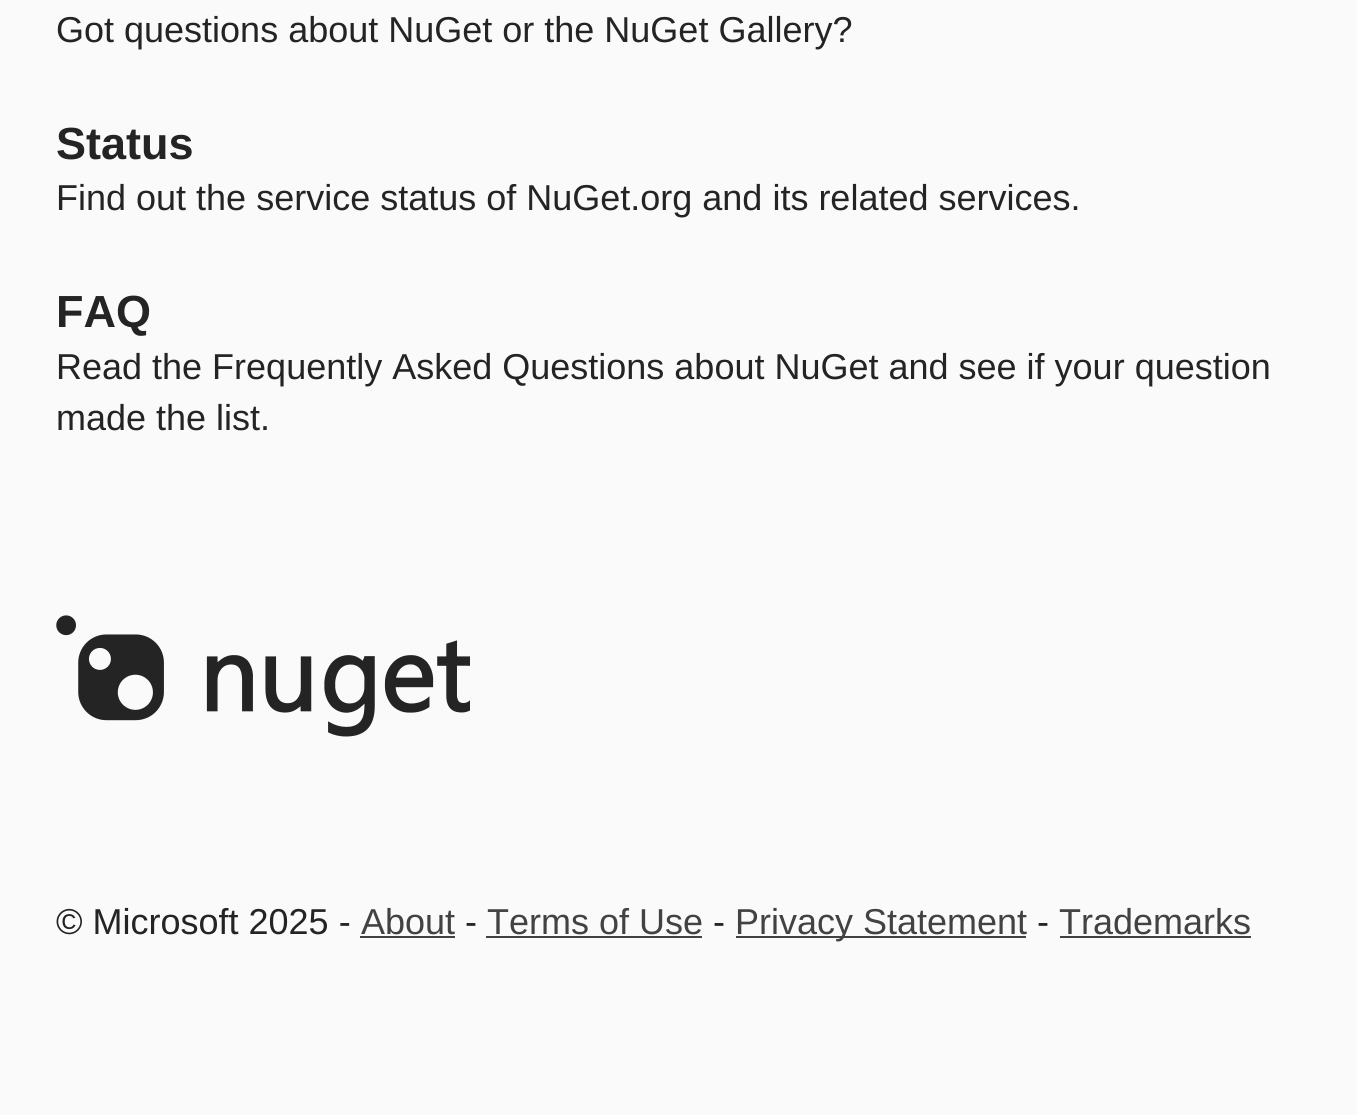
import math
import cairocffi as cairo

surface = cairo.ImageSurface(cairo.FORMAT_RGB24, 1357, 1115)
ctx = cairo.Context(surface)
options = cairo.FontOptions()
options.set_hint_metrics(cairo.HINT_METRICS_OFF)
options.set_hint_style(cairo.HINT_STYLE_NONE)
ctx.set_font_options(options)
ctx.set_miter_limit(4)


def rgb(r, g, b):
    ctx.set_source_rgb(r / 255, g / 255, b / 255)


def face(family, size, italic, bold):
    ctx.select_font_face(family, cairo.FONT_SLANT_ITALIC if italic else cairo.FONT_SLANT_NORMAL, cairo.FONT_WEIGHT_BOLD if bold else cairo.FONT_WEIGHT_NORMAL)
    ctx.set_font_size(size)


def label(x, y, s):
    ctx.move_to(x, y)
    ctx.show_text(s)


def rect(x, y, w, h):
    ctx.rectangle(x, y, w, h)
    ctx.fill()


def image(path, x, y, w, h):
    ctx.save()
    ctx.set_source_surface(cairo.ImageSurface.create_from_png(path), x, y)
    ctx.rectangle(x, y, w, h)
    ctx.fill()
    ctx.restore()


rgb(250, 250, 250)
ctx.paint()
face('Liberation Sans', 36, 0, 0)
rgb(36, 36, 36)
label(56, 42, 'Got questions about NuGet or the NuGet Gallery?')
face('Liberation Sans', 45, 0, 1)
label(56, 159, 'Status')
face('Liberation Sans', 36, 0, 0)
label(56, 210, 'Find out the service status of NuGet.org and its related services.')
face('Liberation Sans', 45, 0, 1)
label(56, 327, 'FAQ')
face('Liberation Sans', 36, 0, 0)
label(56, 379, 'Read the Frequently Asked Questions about NuGet and see if your question')
label(56, 430, 'made the list.')
image('image0.png', 56, 615, 414, 122)
label(56, 934, '© Microsoft 2025 -')
rgb(66, 66, 66)
label(361, 934, 'About')
rect(360, 936, 95, 2)
rgb(36, 36, 36)
label(465, 934, '-')
rgb(66, 66, 66)
label(487, 934, 'Terms of Use')
rect(486, 936, 216, 2)
rgb(36, 36, 36)
label(713, 934, '-')
rgb(66, 66, 66)
rect(736, 936, 290, 2)
label(735, 934, 'Privacy Statement')
rgb(36, 36, 36)
label(1037, 934, '-')
rgb(66, 66, 66)
label(1059, 934, 'Trademarks')
rect(1060, 936, 191, 2)
surface.write_to_png('render.png')
